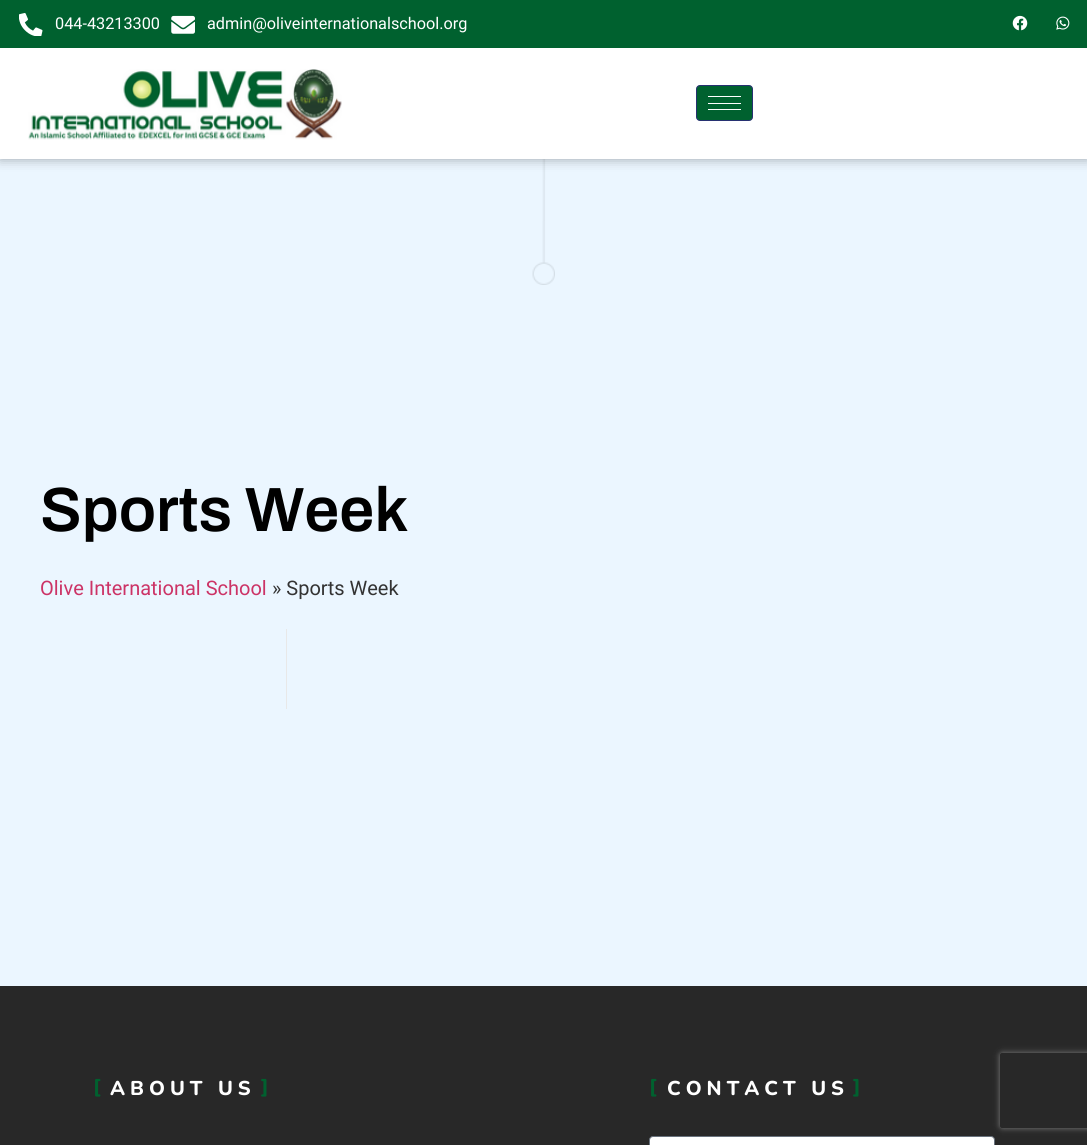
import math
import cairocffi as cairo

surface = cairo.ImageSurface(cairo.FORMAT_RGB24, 1087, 1145)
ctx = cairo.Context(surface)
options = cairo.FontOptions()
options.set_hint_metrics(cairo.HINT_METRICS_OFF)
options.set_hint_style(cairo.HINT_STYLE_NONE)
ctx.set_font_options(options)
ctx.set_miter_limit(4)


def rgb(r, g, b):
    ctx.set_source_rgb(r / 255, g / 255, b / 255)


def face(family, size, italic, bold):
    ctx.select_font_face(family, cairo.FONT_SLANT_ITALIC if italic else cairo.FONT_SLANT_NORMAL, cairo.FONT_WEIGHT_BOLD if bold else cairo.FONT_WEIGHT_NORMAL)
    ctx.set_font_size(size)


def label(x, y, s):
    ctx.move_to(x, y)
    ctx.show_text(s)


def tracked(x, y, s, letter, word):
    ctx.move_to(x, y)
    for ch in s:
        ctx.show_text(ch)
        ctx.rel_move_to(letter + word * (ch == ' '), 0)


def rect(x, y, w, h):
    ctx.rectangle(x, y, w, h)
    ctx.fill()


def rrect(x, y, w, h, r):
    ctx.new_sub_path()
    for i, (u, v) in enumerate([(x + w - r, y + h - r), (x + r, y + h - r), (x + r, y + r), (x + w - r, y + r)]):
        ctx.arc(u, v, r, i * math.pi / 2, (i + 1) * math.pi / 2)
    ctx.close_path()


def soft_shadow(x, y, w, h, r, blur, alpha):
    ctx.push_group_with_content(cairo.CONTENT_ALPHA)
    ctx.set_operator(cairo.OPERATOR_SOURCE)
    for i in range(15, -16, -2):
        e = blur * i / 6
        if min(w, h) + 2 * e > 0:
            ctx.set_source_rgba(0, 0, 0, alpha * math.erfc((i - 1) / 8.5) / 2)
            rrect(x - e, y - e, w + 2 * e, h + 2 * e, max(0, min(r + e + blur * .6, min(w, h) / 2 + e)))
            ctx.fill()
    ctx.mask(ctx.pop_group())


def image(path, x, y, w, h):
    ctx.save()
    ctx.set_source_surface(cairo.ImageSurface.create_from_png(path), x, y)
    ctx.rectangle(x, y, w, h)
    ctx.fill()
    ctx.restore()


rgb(235, 246, 255)
ctx.paint()
image('image5.png', 532, 159, 23, 126)
rgb(0, 0, 0)
soft_shadow(0, 0, 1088, 159, 0, 6, 0.33)
rgb(0, 97, 47)
rect(0, 0, 1087, 48)
image('image0.png', 19, 13, 24, 23)
face('Roboto', 16.25, 0, 0)
rgb(255, 255, 255)
label(55, 29, '044-43213300')
image('image1.png', 171, 15, 24, 19)
label(207, 29, 'admin@oliveinternationalschool.org')
image('image2.png', 1012, 15, 16, 16)
image('image3.png', 1056, 16, 14, 14)
rect(0, 48, 1087, 111)
image('image4.png', 28, 69, 314, 71)
rgb(0, 97, 47)
rrect(696.5, 85.5, 56, 35, 3.5)
ctx.fill_preserve()
rgb(39, 49, 113)
ctx.set_line_width(1)
ctx.stroke()
rgb(255, 255, 255)
rect(708, 96, 33, 1)
rect(708, 103, 33, 1)
rect(708, 109, 33, 1)
face('Archivo SemiBold', 62.5, 0, 0)
rgb(0, 0, 0)
label(40, 531, 'Sports Week')
face('Roboto', 20, 0, 0)
rgb(204, 51, 102)
label(40, 595, 'Olive International School')
rgb(51, 51, 51)
label(272, 595, '» Sports Week')
rgb(232, 232, 232)
rect(286, 629, 1, 80)
rgb(40, 40, 40)
rect(0, 986, 1087, 159)
face('Nunito ExtraBold', 20, 0, 0)
rgb(0, 97, 47)
tracked(93, 1093, '[', 5, 0)
rgb(255, 255, 255)
tracked(110, 1095, 'ABOUT US', 5, 0)
rgb(0, 97, 47)
tracked(261, 1093, ']', 5, 0)
tracked(649, 1093, '[', 5, 0)
rgb(255, 255, 255)
tracked(667, 1095, 'CONTACT US', 5, 0)
rgb(0, 97, 47)
tracked(853, 1093, ']', 5, 0)
rgb(255, 255, 255)
rrect(649.5, 1136.5, 345, 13, 3.5)
ctx.fill_preserve()
rgb(105, 114, 125)
ctx.stroke()
ctx.save()
ctx.set_fill_rule(cairo.FILL_RULE_EVEN_ODD)
ctx.new_path()
ctx.move_to(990, 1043)
ctx.line_to(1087, 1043)
ctx.line_to(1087, 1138)
ctx.line_to(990, 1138)
ctx.close_path()
ctx.move_to(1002.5, 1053)
ctx.line_to(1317.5, 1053)
ctx.curve_to(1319, 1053, 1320, 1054, 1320, 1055.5)
ctx.line_to(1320, 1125.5)
ctx.curve_to(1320, 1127, 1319, 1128, 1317.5, 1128)
ctx.line_to(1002.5, 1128)
ctx.curve_to(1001, 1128, 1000, 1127, 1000, 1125.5)
ctx.line_to(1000, 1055.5)
ctx.curve_to(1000, 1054, 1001, 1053, 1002.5, 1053)
ctx.close_path()
ctx.clip()
rgb(128, 128, 128)
soft_shadow(1000, 1053, 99, 75, 2.5, 3, 1)
ctx.restore()
surface.write_to_png('render.png')
